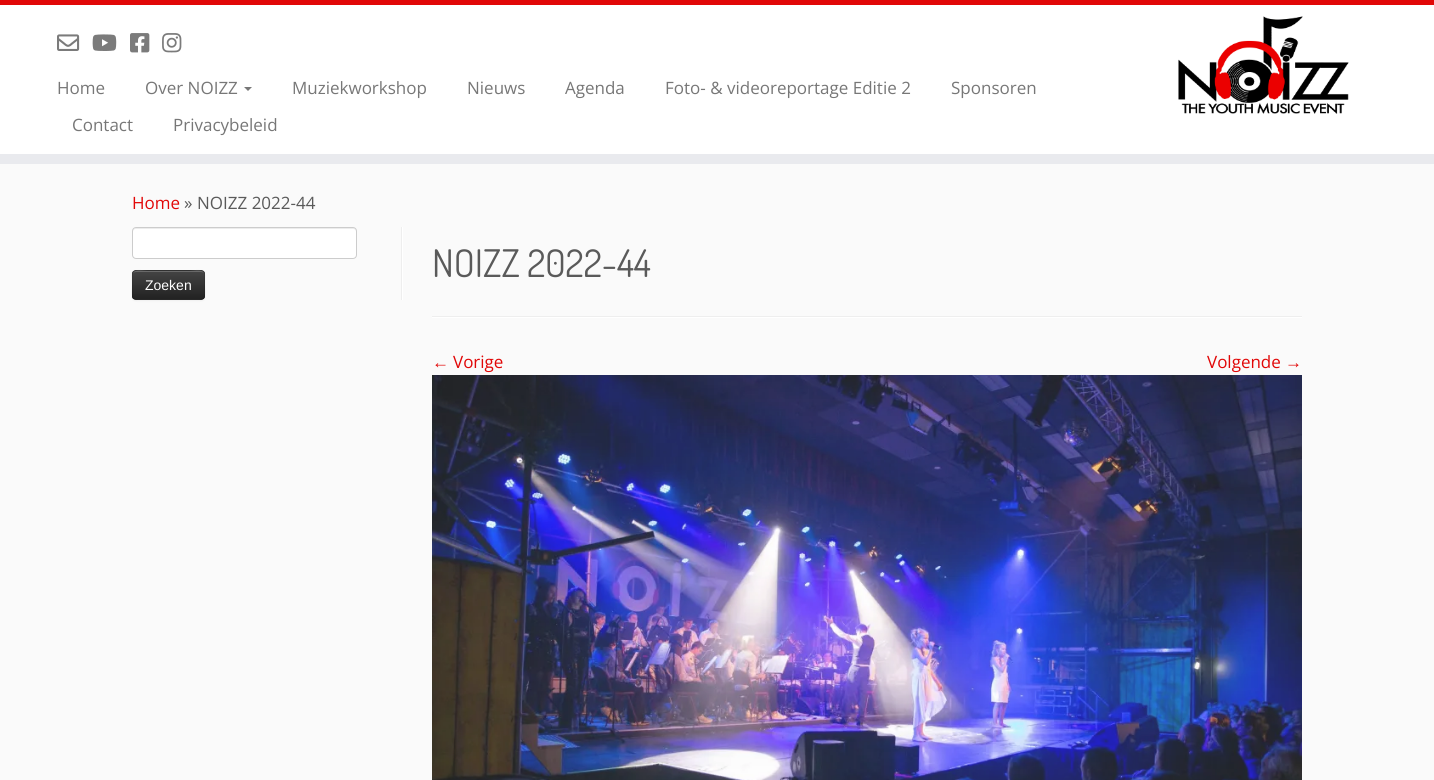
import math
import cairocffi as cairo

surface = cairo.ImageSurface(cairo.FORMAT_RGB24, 1434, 780)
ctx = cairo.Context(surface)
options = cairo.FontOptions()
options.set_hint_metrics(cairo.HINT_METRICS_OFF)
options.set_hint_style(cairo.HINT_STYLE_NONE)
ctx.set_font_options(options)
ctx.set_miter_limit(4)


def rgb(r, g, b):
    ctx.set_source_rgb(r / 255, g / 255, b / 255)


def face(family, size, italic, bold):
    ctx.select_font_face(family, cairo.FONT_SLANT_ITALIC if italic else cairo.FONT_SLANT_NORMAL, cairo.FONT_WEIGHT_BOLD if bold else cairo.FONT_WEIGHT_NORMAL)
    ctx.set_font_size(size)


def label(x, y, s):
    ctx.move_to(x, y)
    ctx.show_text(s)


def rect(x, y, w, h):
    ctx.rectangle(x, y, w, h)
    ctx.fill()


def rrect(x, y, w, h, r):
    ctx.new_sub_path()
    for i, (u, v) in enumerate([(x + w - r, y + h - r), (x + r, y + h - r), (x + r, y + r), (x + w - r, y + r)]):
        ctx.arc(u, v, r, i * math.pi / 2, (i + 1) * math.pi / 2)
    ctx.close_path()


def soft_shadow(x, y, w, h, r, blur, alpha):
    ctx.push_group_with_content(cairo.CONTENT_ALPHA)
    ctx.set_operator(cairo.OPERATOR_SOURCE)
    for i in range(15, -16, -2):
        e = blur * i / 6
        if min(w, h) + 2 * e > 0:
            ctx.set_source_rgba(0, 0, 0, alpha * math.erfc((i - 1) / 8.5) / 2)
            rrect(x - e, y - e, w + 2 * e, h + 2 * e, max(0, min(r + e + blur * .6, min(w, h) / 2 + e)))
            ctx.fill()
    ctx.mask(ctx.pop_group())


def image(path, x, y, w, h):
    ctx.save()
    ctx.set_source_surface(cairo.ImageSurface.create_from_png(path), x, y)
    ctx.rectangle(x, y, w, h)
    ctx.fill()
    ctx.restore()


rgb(250, 250, 250)
ctx.paint()
rgb(255, 255, 255)
rect(0, 5, 1434, 149)
rgb(225, 7, 7)
rect(0, 0, 1434, 5)
rgb(233, 234, 238)
rect(0, 154, 1434, 10)
image('image0.png', 57, 34, 23, 17)
image('image1.png', 92, 34, 25, 17)
image('image2.png', 130, 33, 20, 20)
image('image3.png', 162, 33, 20, 20)
face('Open Sans', 17, 0, 0)
rgb(119, 119, 119)
label(57, 94, 'Home')
label(145, 94, 'Over NOIZZ')
ctx.new_path()
ctx.move_to(244, 87)
ctx.line_to(252, 87)
ctx.line_to(248, 91)
ctx.close_path()
ctx.fill()
label(292, 94, 'Muziekworkshop')
label(467, 94, 'Nieuws')
label(565, 94, 'Agenda')
label(665, 94, 'Foto- & videoreportage Editie 2')
label(951, 94, 'Sponsoren')
label(72, 131, 'Contact')
label(173, 131, 'Privacybeleid')
image('image4.png', 1178, 16, 171, 98)
rgb(225, 7, 7)
label(132, 209, 'Home')
face('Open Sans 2', 17, 0, 0)
rgb(90, 90, 90)
label(184, 209, '»')
face('Open Sans', 17, 0, 0)
label(197, 209, 'NOIZZ 2022-44')
rgb(238, 238, 238)
rect(401, 227, 1, 73)
rgb(255, 255, 255)
rrect(132, 227, 225, 32, 4)
ctx.fill()
rgb(236, 236, 236)
ctx.new_path()
ctx.move_to(136, 229)
ctx.line_to(353, 229)
ctx.curve_to(355, 229, 356, 230, 356, 232)
ctx.line_to(356, 231)
ctx.curve_to(356, 229, 355, 228, 353, 228)
ctx.line_to(136, 228)
ctx.curve_to(134, 228, 133, 229, 133, 231)
ctx.line_to(133, 232)
ctx.curve_to(133, 230, 134, 229, 136, 229)
ctx.close_path()
ctx.fill()
rrect(132.5, 227.5, 224, 31, 3.5)
rgb(204, 204, 204)
ctx.set_line_width(1)
ctx.stroke()
rgb(0, 0, 0)
soft_shadow(132, 271, 73, 30, 4, 1, 0.05)
rgb(54, 54, 54)
rrect(132, 270, 73, 30, 4)
ctx.fill()
ctx.save()
rrect(132, 270, 73, 30, 4)
ctx.clip()
gradient = cairo.LinearGradient(169, 271, 169, 299)
gradient.add_color_stop_rgba(0, 0.267, 0.267, 0.267, 1)
gradient.add_color_stop_rgba(1, 0.133, 0.133, 0.133, 1)
ctx.set_source(gradient)
rect(132, 271, 73, 28)
ctx.restore()
ctx.set_source_rgba(1, 1, 1, 0.2)
ctx.new_path()
ctx.move_to(136, 272)
ctx.line_to(201, 272)
ctx.curve_to(203, 272, 204, 273, 204, 275)
ctx.curve_to(204, 268, 194, 271, 190, 271)
ctx.line_to(147, 271)
ctx.curve_to(143, 271, 133, 268, 133, 275)
ctx.curve_to(133, 273, 134, 272, 136, 272)
ctx.close_path()
ctx.fill()
ctx.new_path()
ctx.move_to(203.5, 298.5)
ctx.line_to(201.5, 299.5)
ctx.line_to(135.5, 299.5)
ctx.line_to(133.5, 298.5)
ctx.set_source_rgba(0, 0, 0, 0.25)
ctx.stroke()
ctx.new_path()
ctx.move_to(133.5, 298.5)
ctx.curve_to(131.5, 296.5, 132.5, 288, 132.5, 285)
ctx.curve_to(132.5, 268.5, 130, 270.5, 147, 270.5)
ctx.line_to(190, 270.5)
ctx.curve_to(207, 270.5, 204.5, 268.5, 204.5, 285)
ctx.curve_to(204.5, 288, 205.5, 296.5, 203.5, 298.5)
ctx.set_source_rgba(0, 0, 0, 0.1)
ctx.stroke()
face('Liberation Sans', 14, 0, 0)
rgb(255, 255, 255)
label(145, 290, 'Zoeken')
rect(402, 227, 1, 73)
face('Dosis', 38, 0, 0)
rgb(90, 90, 90)
label(432, 277, 'NOIZZ 2022-44')
rgb(238, 238, 238)
rect(432, 316, 870, 1)
rgb(255, 255, 255)
rect(432, 317, 870, 1)
face('Liberation Serif', 17, 0, 0)
rgb(225, 7, 7)
label(432, 368, '←')
face('Open Sans', 17, 0, 0)
label(453, 368, 'Vorige')
label(1207, 368, 'Volgende')
face('Liberation Serif', 17, 0, 0)
label(1285, 368, '→')
image('image5.png', 432, 375, 870, 405)
surface.write_to_png('render.png')
